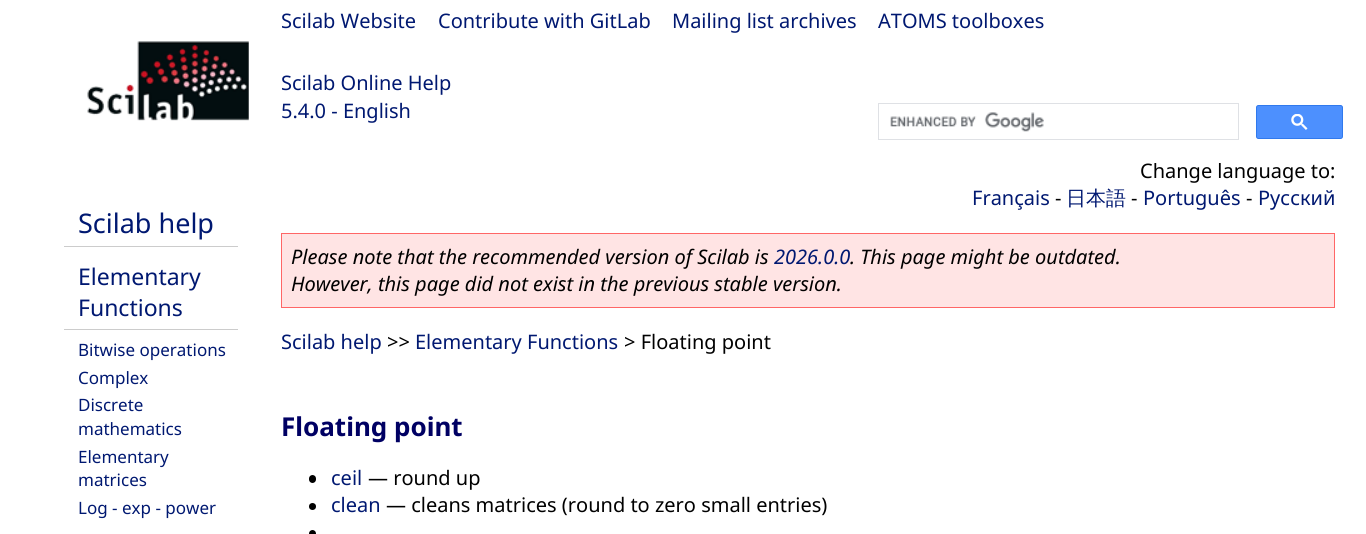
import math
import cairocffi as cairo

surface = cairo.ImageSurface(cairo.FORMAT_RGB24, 1366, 534)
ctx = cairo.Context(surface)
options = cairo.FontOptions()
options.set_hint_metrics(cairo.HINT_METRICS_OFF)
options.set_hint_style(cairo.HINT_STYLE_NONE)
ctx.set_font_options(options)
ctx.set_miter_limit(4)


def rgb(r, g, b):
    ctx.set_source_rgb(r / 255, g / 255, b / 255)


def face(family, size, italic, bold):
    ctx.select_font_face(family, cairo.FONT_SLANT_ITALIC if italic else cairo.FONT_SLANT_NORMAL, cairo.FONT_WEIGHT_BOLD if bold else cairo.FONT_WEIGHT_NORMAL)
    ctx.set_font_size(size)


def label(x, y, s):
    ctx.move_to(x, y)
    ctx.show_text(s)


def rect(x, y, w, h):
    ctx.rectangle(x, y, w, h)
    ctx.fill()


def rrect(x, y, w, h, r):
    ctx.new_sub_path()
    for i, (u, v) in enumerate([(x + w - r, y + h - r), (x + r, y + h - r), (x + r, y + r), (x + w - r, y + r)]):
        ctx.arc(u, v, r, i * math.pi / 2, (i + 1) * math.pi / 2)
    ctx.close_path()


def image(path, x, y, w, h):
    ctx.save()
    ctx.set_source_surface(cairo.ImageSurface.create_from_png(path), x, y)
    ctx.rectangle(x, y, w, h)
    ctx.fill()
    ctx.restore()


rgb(255, 255, 255)
ctx.paint()
image('image0.png', 87, 41, 162, 80)
face('Noto Sans', 20, 0, 0)
rgb(0, 24, 113)
label(281, 28, 'Scilab Website')
label(438, 28, 'Contribute with GitLab')
label(672, 28, 'Mailing list archives')
label(878, 28, 'ATOMS toolboxes')
label(281, 90, 'Scilab Online Help')
label(281, 118, '5.4.0 - English')
rgb(0, 0, 0)
label(1140, 178, 'Change language to:')
rgb(255, 255, 255)
rect(1153, 162, 68, 1)
ctx.rectangle(878.5, 103.5, 360, 36)
rgb(223, 225, 229)
ctx.set_line_width(1)
ctx.stroke()
image('image1.png', 890, 112, 154, 20)
rgb(77, 144, 254)
rrect(1256.5, 105.5, 86, 33, 2)
ctx.fill_preserve()
rgb(48, 121, 237)
ctx.stroke()
image('image2.png', 1291, 114, 17, 16)
rgb(204, 204, 204)
rect(64, 246, 174, 1)
face('Noto Sans', 27, 0, 0)
rgb(0, 24, 113)
label(78, 233, 'Scilab help')
rgb(204, 204, 204)
rect(64, 329, 174, 1)
face('Noto Sans', 23, 0, 0)
rgb(0, 24, 113)
label(78, 285, 'Elementary')
label(78, 316, 'Functions')
face('Noto Sans', 17, 0, 0)
label(78, 356, 'Bitwise operations')
label(78, 384, 'Complex')
label(78, 411, 'Discrete')
label(78, 435, 'mathematics')
label(78, 463, 'Elementary')
label(78, 486, 'matrices')
label(78, 514, 'Log - exp - power')
face('Noto Sans', 20, 0, 0)
label(972, 205, 'Français')
rgb(0, 0, 0)
label(1055, 205, '-')
face('WenQuanYi Zen Hei Medium', 20, 0, 0)
rgb(0, 24, 113)
label(1066, 205, '日本語')
face('Noto Sans', 20, 0, 0)
rgb(0, 0, 0)
label(1131, 205, '-')
rgb(0, 24, 113)
label(1143, 205, 'Português')
rgb(0, 0, 0)
label(1246, 205, '-')
rgb(0, 24, 113)
label(1258, 205, 'Русский')
rgb(255, 228, 228)
ctx.rectangle(281.5, 233.5, 1053, 74)
ctx.fill_preserve()
rgb(255, 102, 102)
ctx.stroke()
face('Noto Sans', 20, 1, 0)
rgb(0, 0, 0)
label(291, 264, 'Please note that the recommended version of Scilab is')
rgb(0, 24, 113)
label(774, 264, '2026.0.0')
rgb(0, 0, 0)
label(850, 264, '. This page might be outdated.')
label(291, 291, 'However, this page did not exist in the previous stable version.')
face('Noto Sans', 20, 0, 0)
rgb(0, 24, 113)
label(281, 349, 'Scilab help')
rgb(0, 0, 0)
label(387, 349, '>>')
rgb(0, 24, 113)
label(415, 349, 'Elementary Functions')
rgb(0, 0, 0)
label(624, 349, '> Floating point')
face('Noto Sans', 26, 0, 1)
rgb(0, 0, 99)
label(281, 436, 'Floating point')
rgb(0, 0, 0)
rrect(309, 475, 7, 8, 3.5)
ctx.fill()
face('Noto Sans', 20, 0, 0)
rgb(0, 24, 113)
label(331, 485, 'ceil')
rgb(0, 0, 0)
label(368, 485, '— round up')
ctx.new_path()
ctx.arc(312.5, 506.5, 3.5, 0, 2 * math.pi)
ctx.fill()
rgb(0, 24, 113)
label(331, 512, 'clean')
rgb(0, 0, 0)
label(386, 512, '— cleans matrices (round to zero small entries)')
rrect(309, 530, 7, 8, 3.5)
ctx.fill()
surface.write_to_png('render.png')
